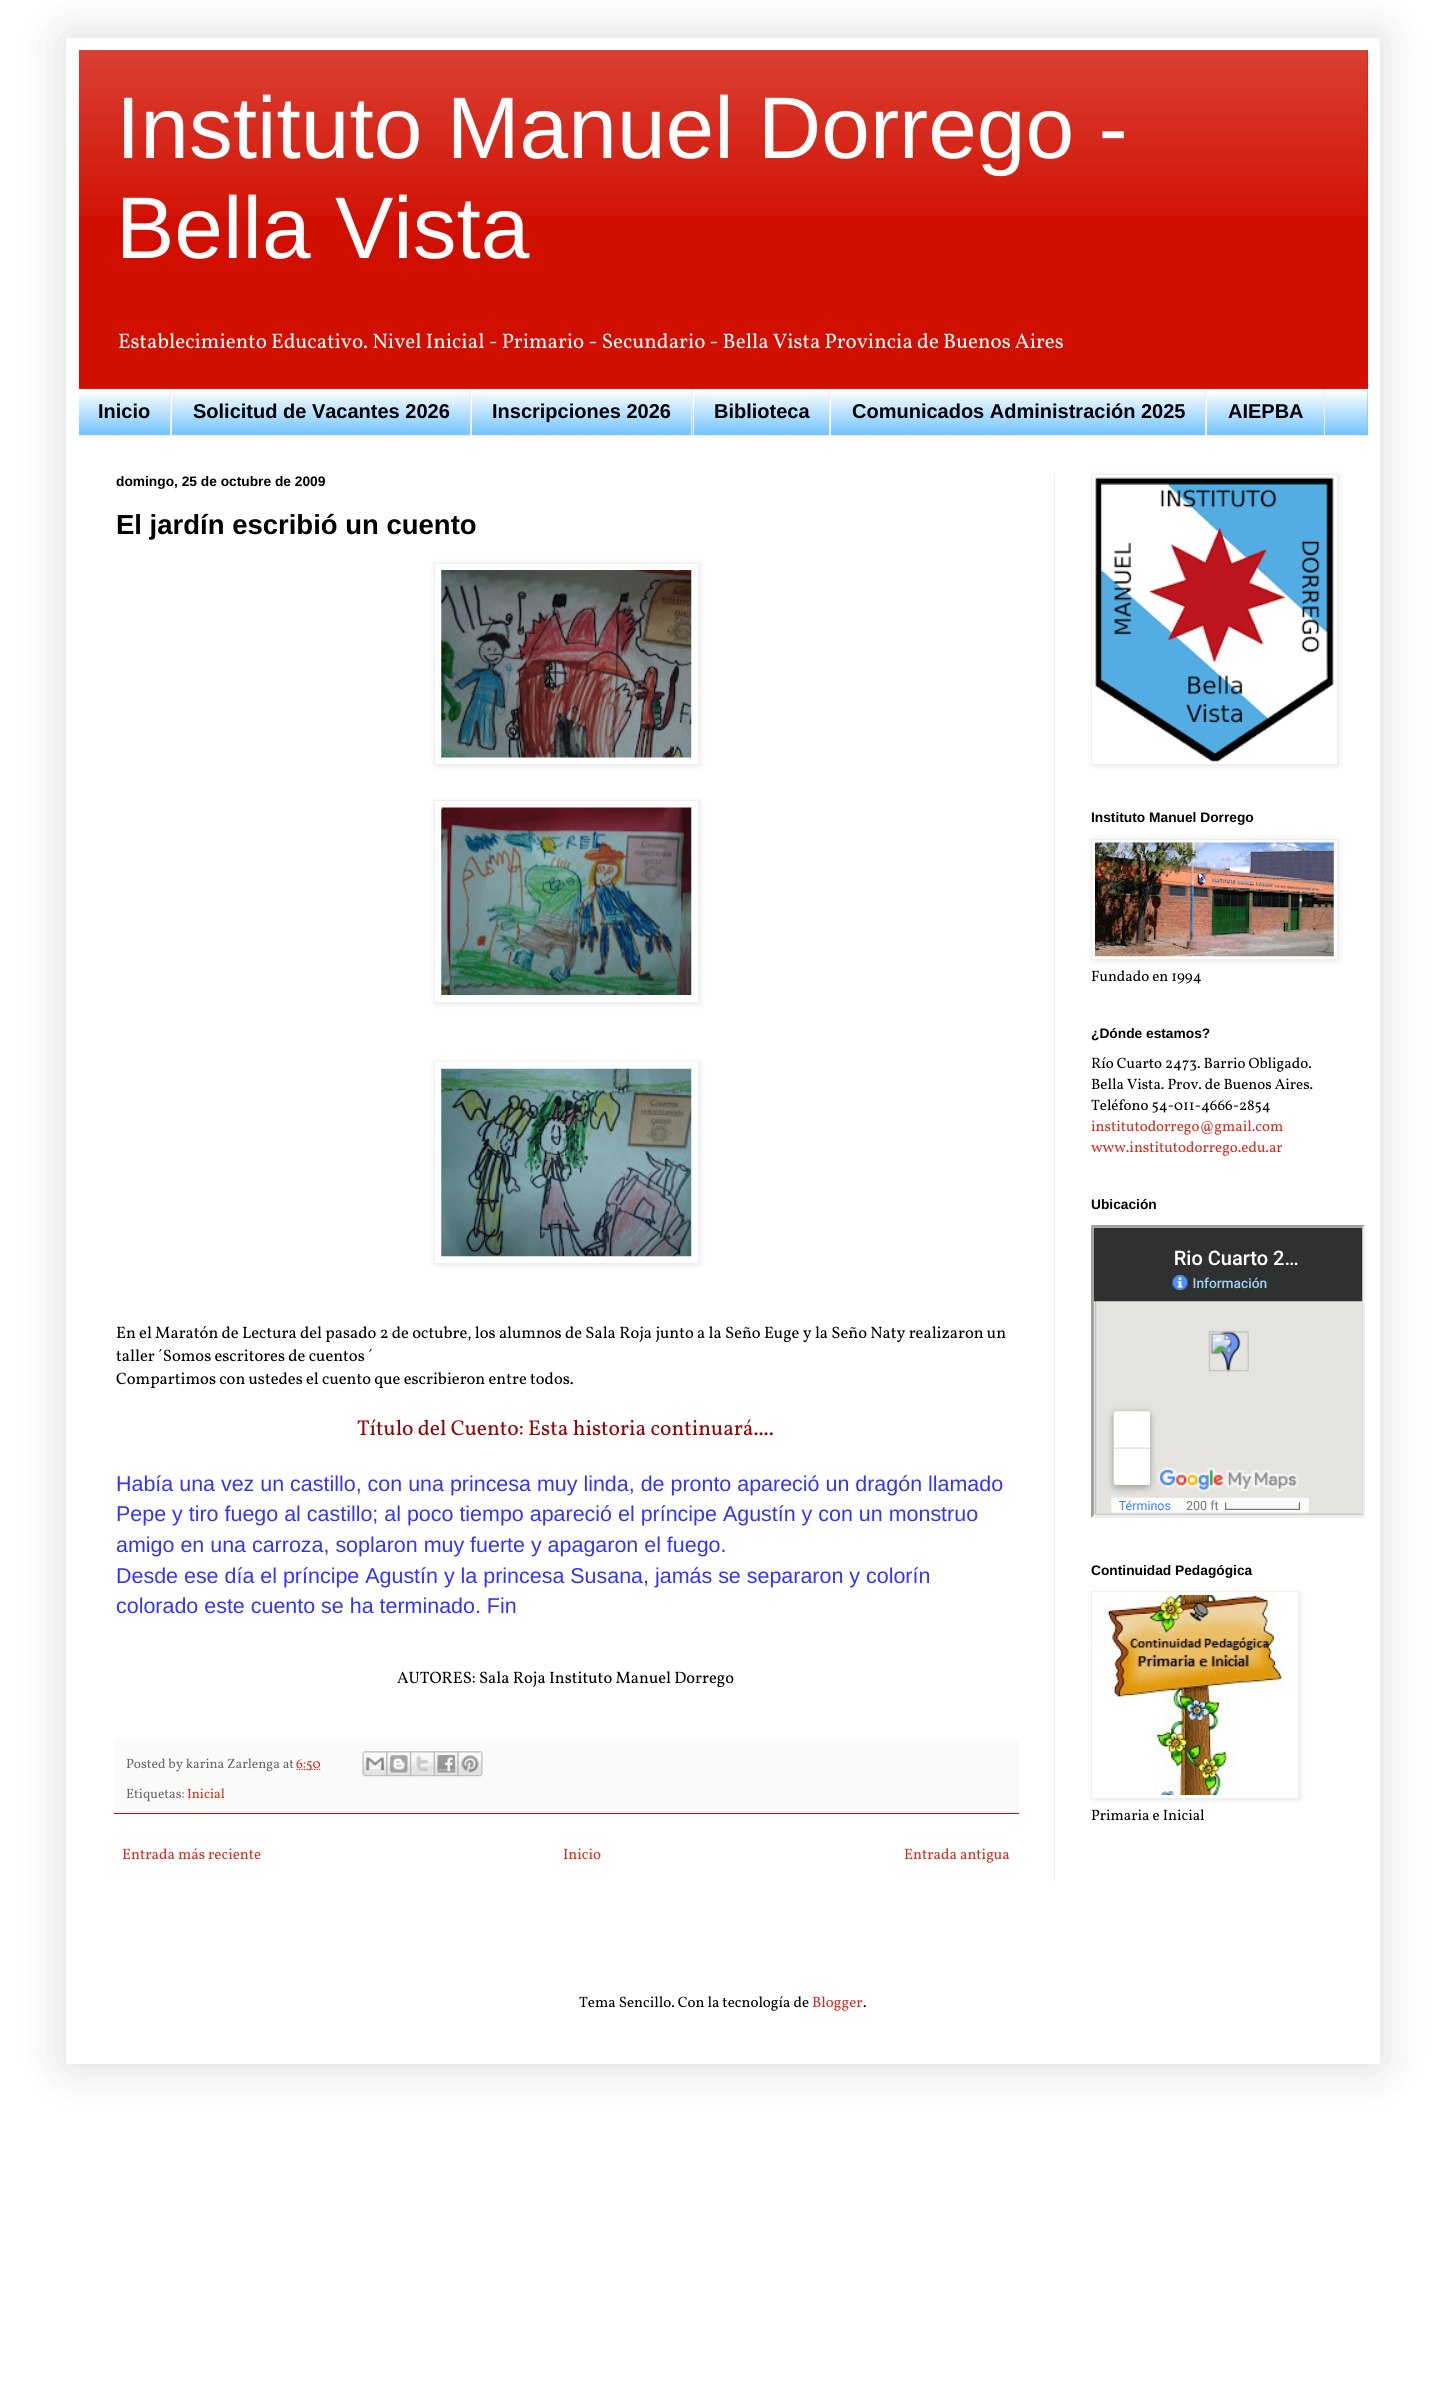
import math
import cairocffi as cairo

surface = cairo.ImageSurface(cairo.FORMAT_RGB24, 1444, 2399)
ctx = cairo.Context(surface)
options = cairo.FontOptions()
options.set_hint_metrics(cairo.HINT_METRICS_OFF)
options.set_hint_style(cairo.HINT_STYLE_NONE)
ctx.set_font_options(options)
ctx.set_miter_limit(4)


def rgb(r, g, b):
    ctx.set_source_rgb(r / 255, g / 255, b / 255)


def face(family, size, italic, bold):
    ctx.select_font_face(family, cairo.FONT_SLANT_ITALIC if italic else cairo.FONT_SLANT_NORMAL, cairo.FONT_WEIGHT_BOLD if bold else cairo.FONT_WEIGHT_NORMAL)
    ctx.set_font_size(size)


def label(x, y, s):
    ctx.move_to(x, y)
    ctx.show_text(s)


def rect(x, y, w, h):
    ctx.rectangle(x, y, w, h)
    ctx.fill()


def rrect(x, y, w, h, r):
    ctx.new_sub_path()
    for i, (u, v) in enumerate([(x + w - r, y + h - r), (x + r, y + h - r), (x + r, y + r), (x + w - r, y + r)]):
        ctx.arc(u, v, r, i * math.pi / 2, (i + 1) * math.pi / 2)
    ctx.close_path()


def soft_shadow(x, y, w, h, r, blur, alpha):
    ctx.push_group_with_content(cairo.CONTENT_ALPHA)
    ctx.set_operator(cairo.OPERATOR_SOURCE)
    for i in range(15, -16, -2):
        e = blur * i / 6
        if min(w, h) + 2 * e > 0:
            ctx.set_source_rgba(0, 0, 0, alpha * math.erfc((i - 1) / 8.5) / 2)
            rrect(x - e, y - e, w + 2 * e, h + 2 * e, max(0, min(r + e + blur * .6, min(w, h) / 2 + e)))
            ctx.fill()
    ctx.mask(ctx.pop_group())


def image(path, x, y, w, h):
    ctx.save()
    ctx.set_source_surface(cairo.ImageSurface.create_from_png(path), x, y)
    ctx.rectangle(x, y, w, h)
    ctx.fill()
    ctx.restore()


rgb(255, 255, 255)
ctx.paint()
rgb(0, 0, 0)
soft_shadow(66, 38, 1314, 2026, 0, 25, 0.15)
rgb(255, 255, 255)
rect(66, 38, 1314, 2026)
rgb(209, 15, 0)
rect(79, 50, 1289, 339)
image('image0.png', 79, 50, 1289, 166)
face('Liberation Sans', 87.5, 0, 0)
rgb(255, 255, 255)
label(116, 158, 'Instituto Manuel Dorrego -')
label(116, 258, 'Bella Vista')
face('Vollkorn', 21, 0, 0)
label(118, 348, 'Establecimiento Educativo. Nivel Inicial - Primario - Secundario - Bella Vista Provincia de Buenos Aires')
rgb(107, 193, 255)
rect(79, 389, 1289, 46)
image('image1.png', 79, 388, 1289, 47)
rgb(238, 238, 238)
rect(79, 435, 1289, 1)
rect(170, 389, 1, 46)
face('Liberation Sans', 20, 0, 1)
rgb(0, 0, 0)
label(98, 418, 'Inicio')
rgb(238, 238, 238)
rect(470, 389, 1, 46)
rgb(255, 255, 255)
rect(171, 389, 1, 46)
rgb(0, 0, 0)
label(193, 418, 'Solicitud de Vacantes 2026')
rgb(238, 238, 238)
rect(691, 389, 1, 46)
rgb(255, 255, 255)
rect(471, 389, 1, 46)
rgb(0, 0, 0)
label(492, 418, 'Inscripciones 2026')
rgb(238, 238, 238)
rect(829, 389, 1, 46)
rgb(255, 255, 255)
rect(693, 389, 1, 46)
rgb(0, 0, 0)
label(714, 418, 'Biblioteca')
rgb(238, 238, 238)
rect(1205, 389, 1, 46)
rgb(255, 255, 255)
rect(830, 389, 1, 46)
rgb(0, 0, 0)
label(852, 418, 'Comunicados Administración 2025')
rgb(238, 238, 238)
rect(1324, 389, 1, 46)
rgb(255, 255, 255)
rect(1206, 389, 1, 46)
rgb(0, 0, 0)
label(1228, 418, 'AIEPBA')
rgb(239, 239, 239)
rect(1054, 474, 1, 1407)
face('Liberation Sans', 13.75, 0, 1)
rgb(0, 0, 0)
label(116, 486, 'domingo, 25 de octubre de 2009')
face('Liberation Sans', 27.5, 0, 1)
label(116, 534, 'El jardín escribió un cuento')
rgb(0, 0, 0)
soft_shadow(435, 564, 265, 202, 0, 3, 0.1)
rgb(255, 255, 255)
ctx.rectangle(434.5, 563.5, 264, 201)
ctx.fill_preserve()
rgb(239, 239, 239)
ctx.set_line_width(1)
ctx.stroke()
image('image2.png', 441, 570, 251, 188)
rgb(0, 0, 0)
soft_shadow(435, 801, 265, 203, 0, 3, 0.1)
rgb(255, 255, 255)
ctx.rectangle(434.5, 800.5, 264, 202)
ctx.fill_preserve()
rgb(239, 239, 239)
ctx.stroke()
image('image3.png', 441, 807, 251, 188)
rgb(0, 0, 0)
soft_shadow(435, 1063, 265, 202, 0, 3, 0.1)
rgb(255, 255, 255)
ctx.rectangle(434.5, 1061.5, 264, 202)
ctx.fill_preserve()
rgb(239, 239, 239)
ctx.stroke()
image('image4.png', 441, 1068, 251, 189)
face('Vollkorn', 16.5, 0, 0)
rgb(0, 0, 0)
label(116, 1338, 'En el Maratón de Lectura del pasado 2 de octubre, los alumnos de Sala Roja junto a la Seño Euge y la Seño Naty realizaron un')
label(116, 1361, 'taller ´Somos escritores de cuentos ´')
label(116, 1384, 'Compartimos con ustedes el cuento que escribieron entre todos.')
face('Vollkorn', 21.45, 0, 0)
rgb(153, 0, 0)
label(357, 1435, 'Título del Cuento: Esta historia continuará....')
face('Liberation Sans', 21.45, 0, 0)
rgb(51, 51, 255)
label(116, 1491, 'Había una vez un castillo, con una princesa muy linda, de pronto apareció un dragón llamado')
label(116, 1521, 'Pepe y tiro fuego al castillo; al poco tiempo apareció el príncipe Agustín y con un monstruo')
label(116, 1552, 'amigo en una carroza, soplaron muy fuerte y apagaron el fuego.')
label(116, 1583, 'Desde ese día el príncipe Agustín y la princesa Susana, jamás se separaron y colorín')
label(116, 1613, 'colorado este cuento se ha terminado. Fin')
face('Vollkorn', 16.5, 0, 0)
rgb(0, 0, 0)
label(397, 1683, 'AUTORES: Sala Roja Instituto Manuel Dorrego')
rgb(250, 250, 250)
rect(114, 1739, 905, 74)
rgb(209, 15, 0)
rect(114, 1813, 905, 1)
face('Vollkorn', 13.5, 0, 0)
rgb(105, 105, 105)
label(126, 1768, 'Posted by karina Zarlenga at')
ctx.new_path()
ctx.move_to(296.5, 1769.5)
ctx.line_to(321, 1769.5)
rgb(213, 44, 31)
ctx.set_line_width(1.2)
ctx.set_dash([1.25, 1.25])
ctx.stroke()
label(296, 1768, '6:50')
image('image5.png', 362, 1751, 26, 26)
image('image6.png', 386, 1751, 26, 26)
image('image7.png', 410, 1751, 25, 26)
image('image8.png', 433, 1751, 26, 26)
image('image9.png', 457, 1751, 26, 26)
rgb(105, 105, 105)
label(126, 1798, 'Etiquetas:')
rgb(213, 44, 31)
label(187, 1798, 'Inicial')
face('Vollkorn', 15, 0, 0)
label(122, 1859, 'Entrada más reciente')
label(563, 1859, 'Inicio')
label(904, 1859, 'Entrada antigua')
rgb(0, 0, 0)
soft_shadow(1093, 475, 246, 291, 0, 3, 0.1)
rgb(255, 255, 255)
ctx.rectangle(1091.5, 474.5, 246, 290)
ctx.fill_preserve()
rgb(239, 239, 239)
ctx.set_line_width(1)
ctx.set_dash([])
ctx.stroke()
image('image10.png', 1095, 477, 239, 285)
face('Liberation Sans', 13.75, 0, 1)
rgb(0, 0, 0)
label(1091, 822, 'Instituto Manuel Dorrego')
rgb(0, 0, 0)
soft_shadow(1093, 840, 246, 121, 0, 3, 0.1)
rgb(255, 255, 255)
ctx.rectangle(1091.5, 839.5, 246, 120)
ctx.fill_preserve()
rgb(239, 239, 239)
ctx.stroke()
image('image11.png', 1095, 842, 239, 115)
face('Vollkorn', 15, 0, 0)
rgb(0, 0, 0)
label(1091, 981, 'Fundado en 1994')
face('Liberation Sans', 13.75, 0, 1)
label(1091, 1038, '¿Dónde estamos?')
face('Vollkorn', 15, 0, 0)
label(1091, 1068, 'Río Cuarto 2473. Barrio Obligado.')
label(1091, 1089, 'Bella Vista. Prov. de Buenos Aires.')
label(1091, 1110, 'Teléfono 54-011-4666-2854')
rgb(213, 44, 31)
label(1091, 1131, 'institutodorrego@gmail.com')
label(1091, 1152, 'www.institutodorrego.edu.ar')
face('Liberation Sans', 13.75, 0, 1)
rgb(0, 0, 0)
label(1091, 1209, 'Ubicación')
rgb(159, 159, 159)
ctx.new_path()
ctx.move_to(1091, 1225)
ctx.line_to(1365, 1225)
ctx.line_to(1362, 1228)
ctx.line_to(1094, 1228)
ctx.close_path()
ctx.fill()
rgb(238, 238, 238)
ctx.new_path()
ctx.move_to(1365, 1225)
ctx.line_to(1365, 1518)
ctx.line_to(1362, 1515)
ctx.line_to(1362, 1228)
ctx.close_path()
ctx.fill()
ctx.new_path()
ctx.move_to(1365, 1518)
ctx.line_to(1091, 1518)
ctx.line_to(1094, 1515)
ctx.line_to(1362, 1515)
ctx.close_path()
ctx.fill()
rgb(159, 159, 159)
ctx.new_path()
ctx.move_to(1091, 1518)
ctx.line_to(1091, 1225)
ctx.line_to(1094, 1228)
ctx.line_to(1094, 1515)
ctx.close_path()
ctx.fill()
image('image12.png', 1093, 1227, 270, 288)
rgb(0, 0, 0)
label(1091, 1575, 'Continuidad Pedagógica')
rgb(0, 0, 0)
soft_shadow(1093, 1593, 207, 207, 0, 3, 0.1)
rgb(255, 255, 255)
ctx.rectangle(1091.5, 1591.5, 207, 207)
ctx.fill_preserve()
rgb(239, 239, 239)
ctx.stroke()
image('image13.png', 1095, 1595, 200, 200)
face('Vollkorn', 15, 0, 0)
rgb(0, 0, 0)
label(1091, 1820, 'Primaria e Inicial')
label(579, 2007, 'Tema Sencillo. Con la tecnología de')
rgb(213, 44, 31)
label(812, 2007, 'Blogger')
rgb(0, 0, 0)
label(863, 2007, '.')
surface.write_to_png('render.png')
